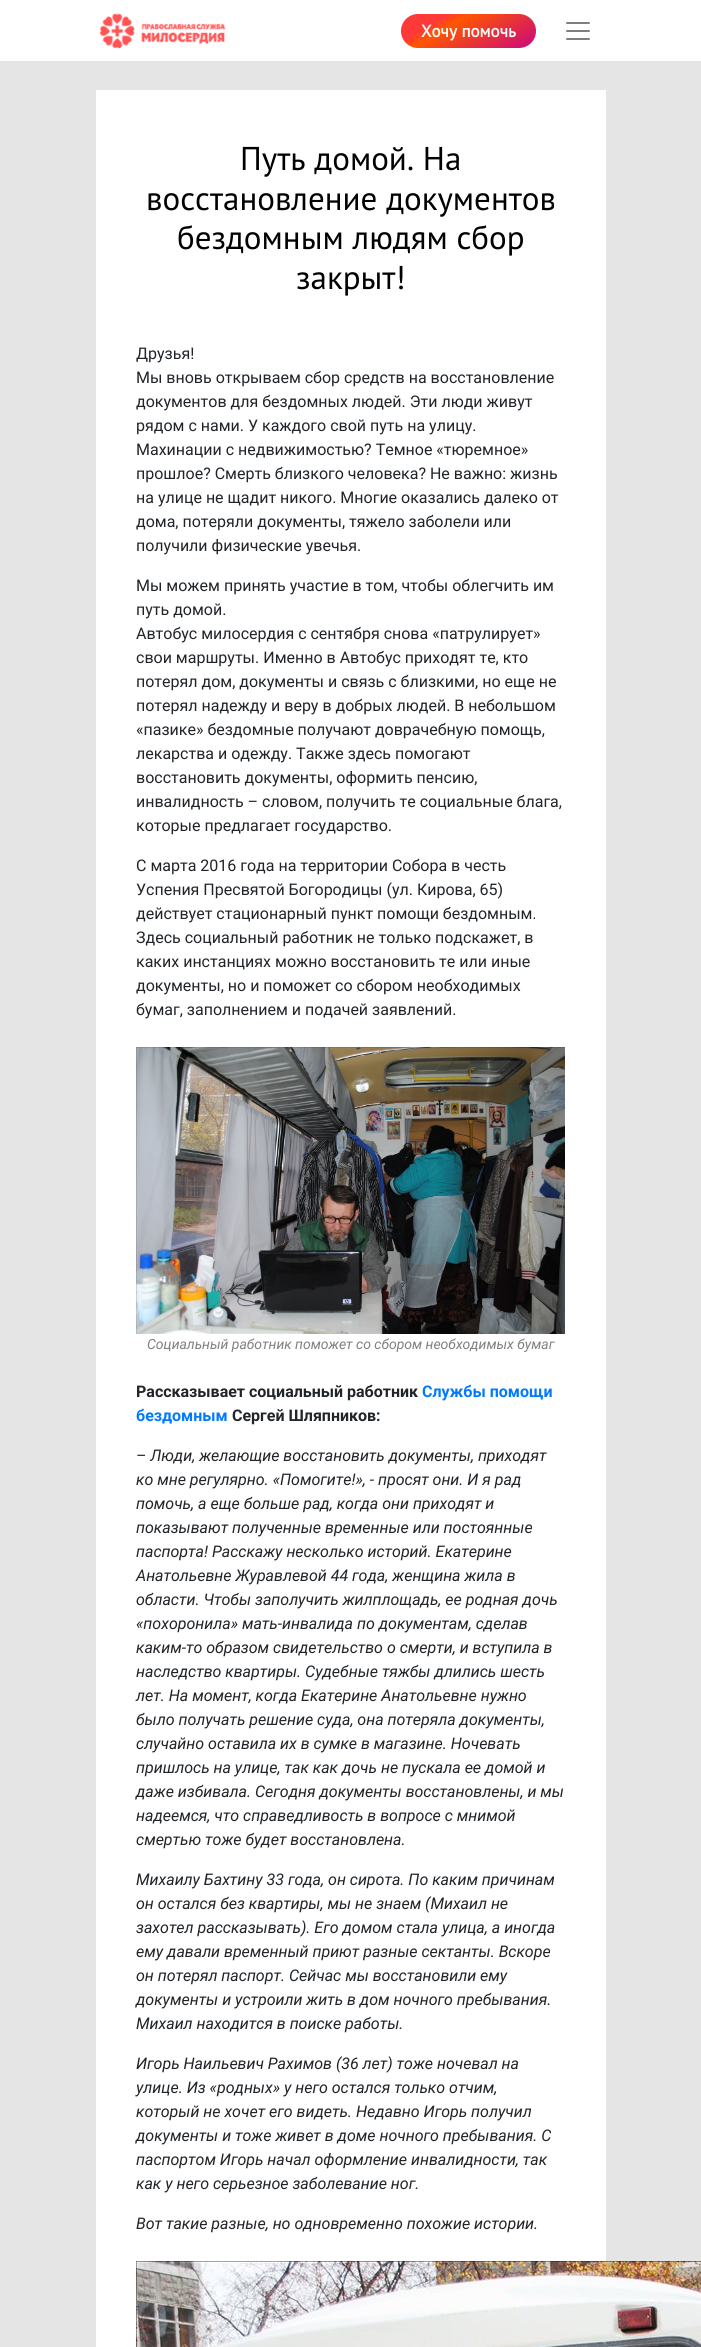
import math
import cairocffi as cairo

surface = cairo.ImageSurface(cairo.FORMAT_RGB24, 701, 2347)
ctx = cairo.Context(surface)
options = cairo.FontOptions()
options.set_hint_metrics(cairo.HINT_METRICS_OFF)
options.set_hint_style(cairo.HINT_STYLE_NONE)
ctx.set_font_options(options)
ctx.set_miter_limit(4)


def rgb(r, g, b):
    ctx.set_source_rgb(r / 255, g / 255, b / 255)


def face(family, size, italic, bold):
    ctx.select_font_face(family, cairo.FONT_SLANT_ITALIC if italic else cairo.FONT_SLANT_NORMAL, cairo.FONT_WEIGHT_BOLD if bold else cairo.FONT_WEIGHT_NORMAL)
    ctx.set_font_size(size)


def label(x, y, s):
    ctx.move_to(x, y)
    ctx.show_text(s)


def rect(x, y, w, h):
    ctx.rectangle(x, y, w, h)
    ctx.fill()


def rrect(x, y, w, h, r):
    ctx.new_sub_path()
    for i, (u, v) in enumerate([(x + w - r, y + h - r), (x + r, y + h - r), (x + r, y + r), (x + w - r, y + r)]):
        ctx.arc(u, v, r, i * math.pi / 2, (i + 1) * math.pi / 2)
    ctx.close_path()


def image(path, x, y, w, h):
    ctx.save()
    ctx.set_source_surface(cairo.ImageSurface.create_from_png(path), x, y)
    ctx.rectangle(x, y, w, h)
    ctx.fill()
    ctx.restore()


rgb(229, 229, 229)
ctx.paint()
rgb(255, 255, 255)
rect(0, 0, 701, 61)
image('image0.png', 100, 13, 126, 36)
gradient = cairo.LinearGradient(444, -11, 493, 73)
gradient.add_color_stop_rgba(0.24, 1, 0.22, 0.22, 1)
gradient.add_color_stop_rgba(0.35, 1, 0.337, 0, 1)
gradient.add_color_stop_rgba(0.93, 0.816, 0.059, 0.443, 1)
ctx.set_source(gradient)
rrect(401, 14, 135, 34, 17)
ctx.fill()
face('PT Sans', 17, 0, 1)
rgb(255, 255, 255)
label(421, 37, 'Хочу помочь')
image('image1.png', 566, 22, 24, 18)
rect(96, 90, 510, 2257)
face('PT Sans', 33, 0, 0)
rgb(0, 0, 0)
label(240, 170, 'Путь домой. На')
label(146, 210, 'восстановление документов')
label(177, 249, 'бездомным людям сбор')
label(296, 289, 'закрыт!')
face('Roboto', 16, 0, 0)
rgb(33, 37, 41)
label(136, 359, 'Друзья!')
label(136, 383, 'Мы вновь открываем сбор средств на восстановление')
label(136, 407, 'документов для бездомных людей. Эти люди живут')
label(136, 431, 'рядом с нами. У каждого свой путь на улицу.')
label(136, 455, 'Махинации с недвижимостью? Темное «тюремное»')
label(136, 479, 'прошлое? Смерть близкого человека? Не важно: жизнь')
label(136, 503, 'на улице не щадит никого. Многие оказались далеко от')
label(136, 527, 'дома, потеряли документы, тяжело заболели или')
label(136, 551, 'получили физические увечья.')
label(136, 591, 'Мы можем принять участие в том, чтобы облегчить им')
label(136, 615, 'путь домой.')
label(136, 639, 'Автобус милосердия с сентября снова «патрулирует»')
label(136, 663, 'свои маршруты. Именно в Автобус приходят те, кто')
label(136, 687, 'потерял дом, документы и связь с близкими, но еще не')
label(136, 711, 'потерял надежду и веру в добрых людей. В небольшом')
label(136, 735, '«пазике» бездомные получают доврачебную помощь,')
label(136, 759, 'лекарства и одежду. Также здесь помогают')
label(136, 783, 'восстановить документы, оформить пенсию,')
label(136, 807, 'инвалидность – словом, получить те социальные блага,')
label(136, 831, 'которые предлагает государство.')
label(136, 871, 'С марта 2016 года на территории Собора в честь')
label(136, 895, 'Успения Пресвятой Богородицы (ул. Кирова, 65)')
label(136, 919, 'действует стационарный пункт помощи бездомным.')
label(136, 943, 'Здесь социальный работник не только подскажет, в')
label(136, 967, 'каких инстанциях можно восстановить те или иные')
label(136, 991, 'документы, но и поможет со сбором необходимых')
label(136, 1015, 'бумаг, заполнением и подачей заявлений.')
image('image2.png', 136, 1047, 429, 287)
face('Roboto', 14, 1, 0)
rgb(128, 128, 128)
label(147, 1349, 'Социальный работник поможет со сбором необходимых бумаг')
face('Roboto', 16, 0, 1)
rgb(33, 37, 41)
label(136, 1397, 'Рассказывает социальный работник')
rgb(0, 123, 255)
label(422, 1397, 'Службы помощи')
label(136, 1421, 'бездомным')
rgb(33, 37, 41)
label(232, 1421, 'Сергей Шляпников:')
face('Roboto', 16, 1, 0)
label(136, 1461, '– Люди, желающие восстановить документы, приходят')
label(136, 1485, 'ко мне регулярно. «Помогите!», - просят они. И я рад')
label(136, 1509, 'помочь, а еще больше рад, когда они приходят и')
label(136, 1533, 'показывают полученные временные или постоянные')
label(136, 1557, 'паспорта! Расскажу несколько историй. Екатерине')
label(136, 1581, 'Анатольевне Журавлевой 44 года, женщина жила в')
label(136, 1605, 'области. Чтобы заполучить жилплощадь, ее родная дочь')
label(136, 1629, '«похоронила» мать-инвалида по документам, сделав')
label(136, 1653, 'каким-то образом свидетельство о смерти, и вступила в')
label(136, 1677, 'наследство квартиры. Судебные тяжбы длились шесть')
label(136, 1701, 'лет. На момент, когда Екатерине Анатольевне нужно')
label(136, 1725, 'было получать решение суда, она потеряла документы,')
label(136, 1749, 'случайно оставила их в сумке в магазине. Ночевать')
label(136, 1773, 'пришлось на улице, так как дочь не пускала ее домой и')
label(136, 1797, 'даже избивала. Сегодня документы восстановлены, и мы')
label(136, 1821, 'надеемся, что справедливость в вопросе с мнимой')
label(136, 1845, 'смертью тоже будет восстановлена.')
label(136, 1885, 'Михаилу Бахтину 33 года, он сирота. По каким причинам')
label(136, 1909, 'он остался без квартиры, мы не знаем (Михаил не')
label(136, 1933, 'захотел рассказывать). Его домом стала улица, а иногда')
label(136, 1957, 'ему давали временный приют разные сектанты. Вскоре')
label(136, 1981, 'он потерял паспорт. Сейчас мы восстановили ему')
label(136, 2005, 'документы и устроили жить в дом ночного пребывания.')
label(136, 2029, 'Михаил находится в поиске работы.')
label(136, 2069, 'Игорь Наильевич Рахимов (36 лет) тоже ночевал на')
label(136, 2093, 'улице. Из «родных» у него остался только отчим,')
label(136, 2117, 'который не хочет его видеть. Недавно Игорь получил')
label(136, 2141, 'документы и тоже живет в доме ночного пребывания. С')
label(136, 2165, 'паспортом Игорь начал оформление инвалидности, так')
label(136, 2189, 'как у него серьезное заболевание ног.')
label(136, 2229, 'Вот такие разные, но одновременно похожие истории.')
image('image3.png', 136, 2261, 565, 86)
surface.write_to_png('render.png')
